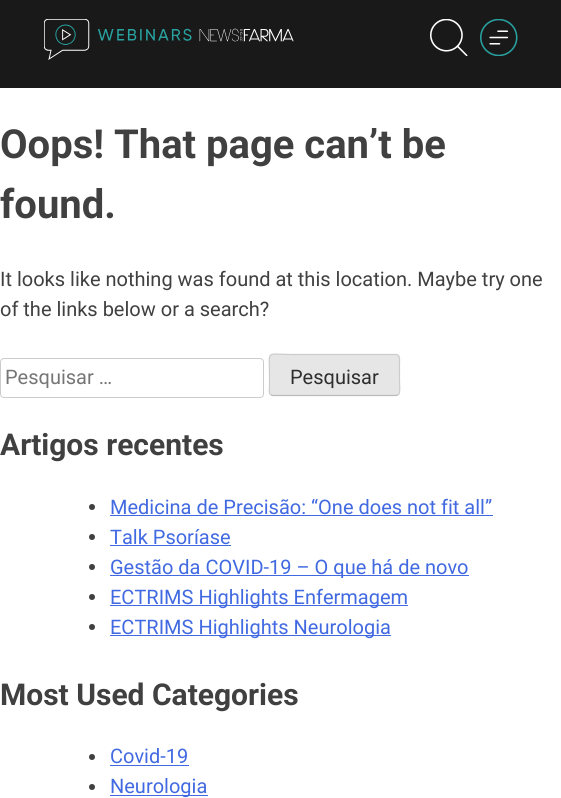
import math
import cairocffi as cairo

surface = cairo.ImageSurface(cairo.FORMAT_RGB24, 561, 798)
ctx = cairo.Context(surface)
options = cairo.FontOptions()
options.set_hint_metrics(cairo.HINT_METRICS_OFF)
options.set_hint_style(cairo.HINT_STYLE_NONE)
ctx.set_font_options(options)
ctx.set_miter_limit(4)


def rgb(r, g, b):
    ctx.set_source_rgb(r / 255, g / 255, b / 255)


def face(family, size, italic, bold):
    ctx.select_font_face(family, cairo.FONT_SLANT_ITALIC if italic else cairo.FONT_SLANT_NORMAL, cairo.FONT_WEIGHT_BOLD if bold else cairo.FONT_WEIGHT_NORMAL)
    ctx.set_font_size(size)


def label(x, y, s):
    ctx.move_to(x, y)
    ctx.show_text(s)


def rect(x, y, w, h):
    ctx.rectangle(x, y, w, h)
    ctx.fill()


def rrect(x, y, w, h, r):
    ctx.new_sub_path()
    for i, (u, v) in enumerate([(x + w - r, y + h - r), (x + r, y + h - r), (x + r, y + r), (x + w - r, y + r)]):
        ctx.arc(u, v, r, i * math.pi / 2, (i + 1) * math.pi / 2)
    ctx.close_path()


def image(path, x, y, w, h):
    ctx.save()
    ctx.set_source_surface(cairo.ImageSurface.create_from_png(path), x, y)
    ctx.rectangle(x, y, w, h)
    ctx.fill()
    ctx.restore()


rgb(255, 255, 255)
ctx.paint()
rgb(25, 25, 25)
rect(0, 0, 561, 88)
image('image0.png', 44, 19, 250, 41)
image('image1.png', 430, 19, 38, 37)
image('image2.png', 480, 19, 38, 37)
face('Roboto', 40, 0, 1)
rgb(64, 64, 64)
label(0, 158, 'Oops! That page can’t be')
label(0, 218, 'found.')
face('Roboto', 20, 0, 0)
label(0, 286, 'It looks like nothing was found at this location. Maybe try one')
label(0, 316, 'of the links below or a search?')
rrect(0.5, 358.5, 263, 39, 3.5)
rgb(204, 204, 204)
ctx.set_line_width(1)
ctx.stroke()
rgb(117, 117, 117)
label(5, 384, 'Pesquisar …')
rgb(230, 230, 230)
rrect(269, 354, 131, 42, 4)
ctx.fill()
ctx.new_path()
ctx.move_to(398.5, 394.5)
ctx.line_to(396, 395.5)
ctx.line_to(272.5, 395.5)
ctx.line_to(270.5, 394.5)
rgb(187, 187, 187)
ctx.set_line_width(1.2)
ctx.stroke()
ctx.new_path()
ctx.move_to(270.5, 394.5)
ctx.curve_to(268.5, 393, 269.5, 388, 269.5, 386.5)
ctx.line_to(269.5, 375)
ctx.curve_to(269.5, 349, 265, 354.5, 293, 354.5)
ctx.line_to(396, 354.5)
ctx.curve_to(400.5, 354.5, 399.5, 361, 399.5, 363.5)
ctx.line_to(399.5, 381)
ctx.curve_to(399.5, 383.5, 400.5, 392.5, 398.5, 394.5)
rgb(204, 204, 204)
ctx.stroke()
rgb(46, 46, 46)
label(290, 384, 'Pesquisar')
face('Roboto', 30, 0, 1)
rgb(64, 64, 64)
label(0, 455, 'Artigos recentes')
ctx.new_path()
ctx.arc(92, 507, 3, 0, 2 * math.pi)
ctx.fill()
face('Roboto', 20, 0, 0)
rgb(65, 105, 225)
label(110, 514, 'Medicina de Precisão: “One does not fit all”')
rect(110, 515, 383, 1)
rgb(64, 64, 64)
ctx.new_path()
ctx.arc(92, 537, 3, 0, 2 * math.pi)
ctx.fill()
rgb(65, 105, 225)
label(110, 544, 'Talk Psoríase')
rect(110, 545, 121, 1)
rgb(64, 64, 64)
ctx.new_path()
ctx.arc(92, 567, 3, 0, 2 * math.pi)
ctx.fill()
rgb(65, 105, 225)
rect(110, 575, 359, 1)
label(110, 574, 'Gestão da COVID-19 – O que há de novo')
rgb(64, 64, 64)
ctx.new_path()
ctx.arc(92, 597, 3, 0, 2 * math.pi)
ctx.fill()
rgb(65, 105, 225)
rect(110, 605, 298, 1)
label(110, 604, 'ECTRIMS Highlights Enfermagem')
rgb(64, 64, 64)
ctx.new_path()
ctx.arc(92, 627, 3, 0, 2 * math.pi)
ctx.fill()
rgb(65, 105, 225)
rect(110, 635, 281, 1)
label(110, 634, 'ECTRIMS Highlights Neurologia')
face('Roboto', 30, 0, 1)
rgb(64, 64, 64)
label(0, 705, 'Most Used Categories')
ctx.new_path()
ctx.arc(92, 757, 3, 0, 2 * math.pi)
ctx.fill()
face('Roboto', 20, 0, 0)
rgb(65, 105, 225)
label(110, 763, 'Covid-19')
rect(110, 765, 79, 1)
rgb(64, 64, 64)
ctx.new_path()
ctx.arc(92, 787, 3, 0, 2 * math.pi)
ctx.fill()
rgb(65, 105, 225)
rect(110, 795, 98, 1)
label(110, 793, 'Neurologia')
surface.write_to_png('render.png')
